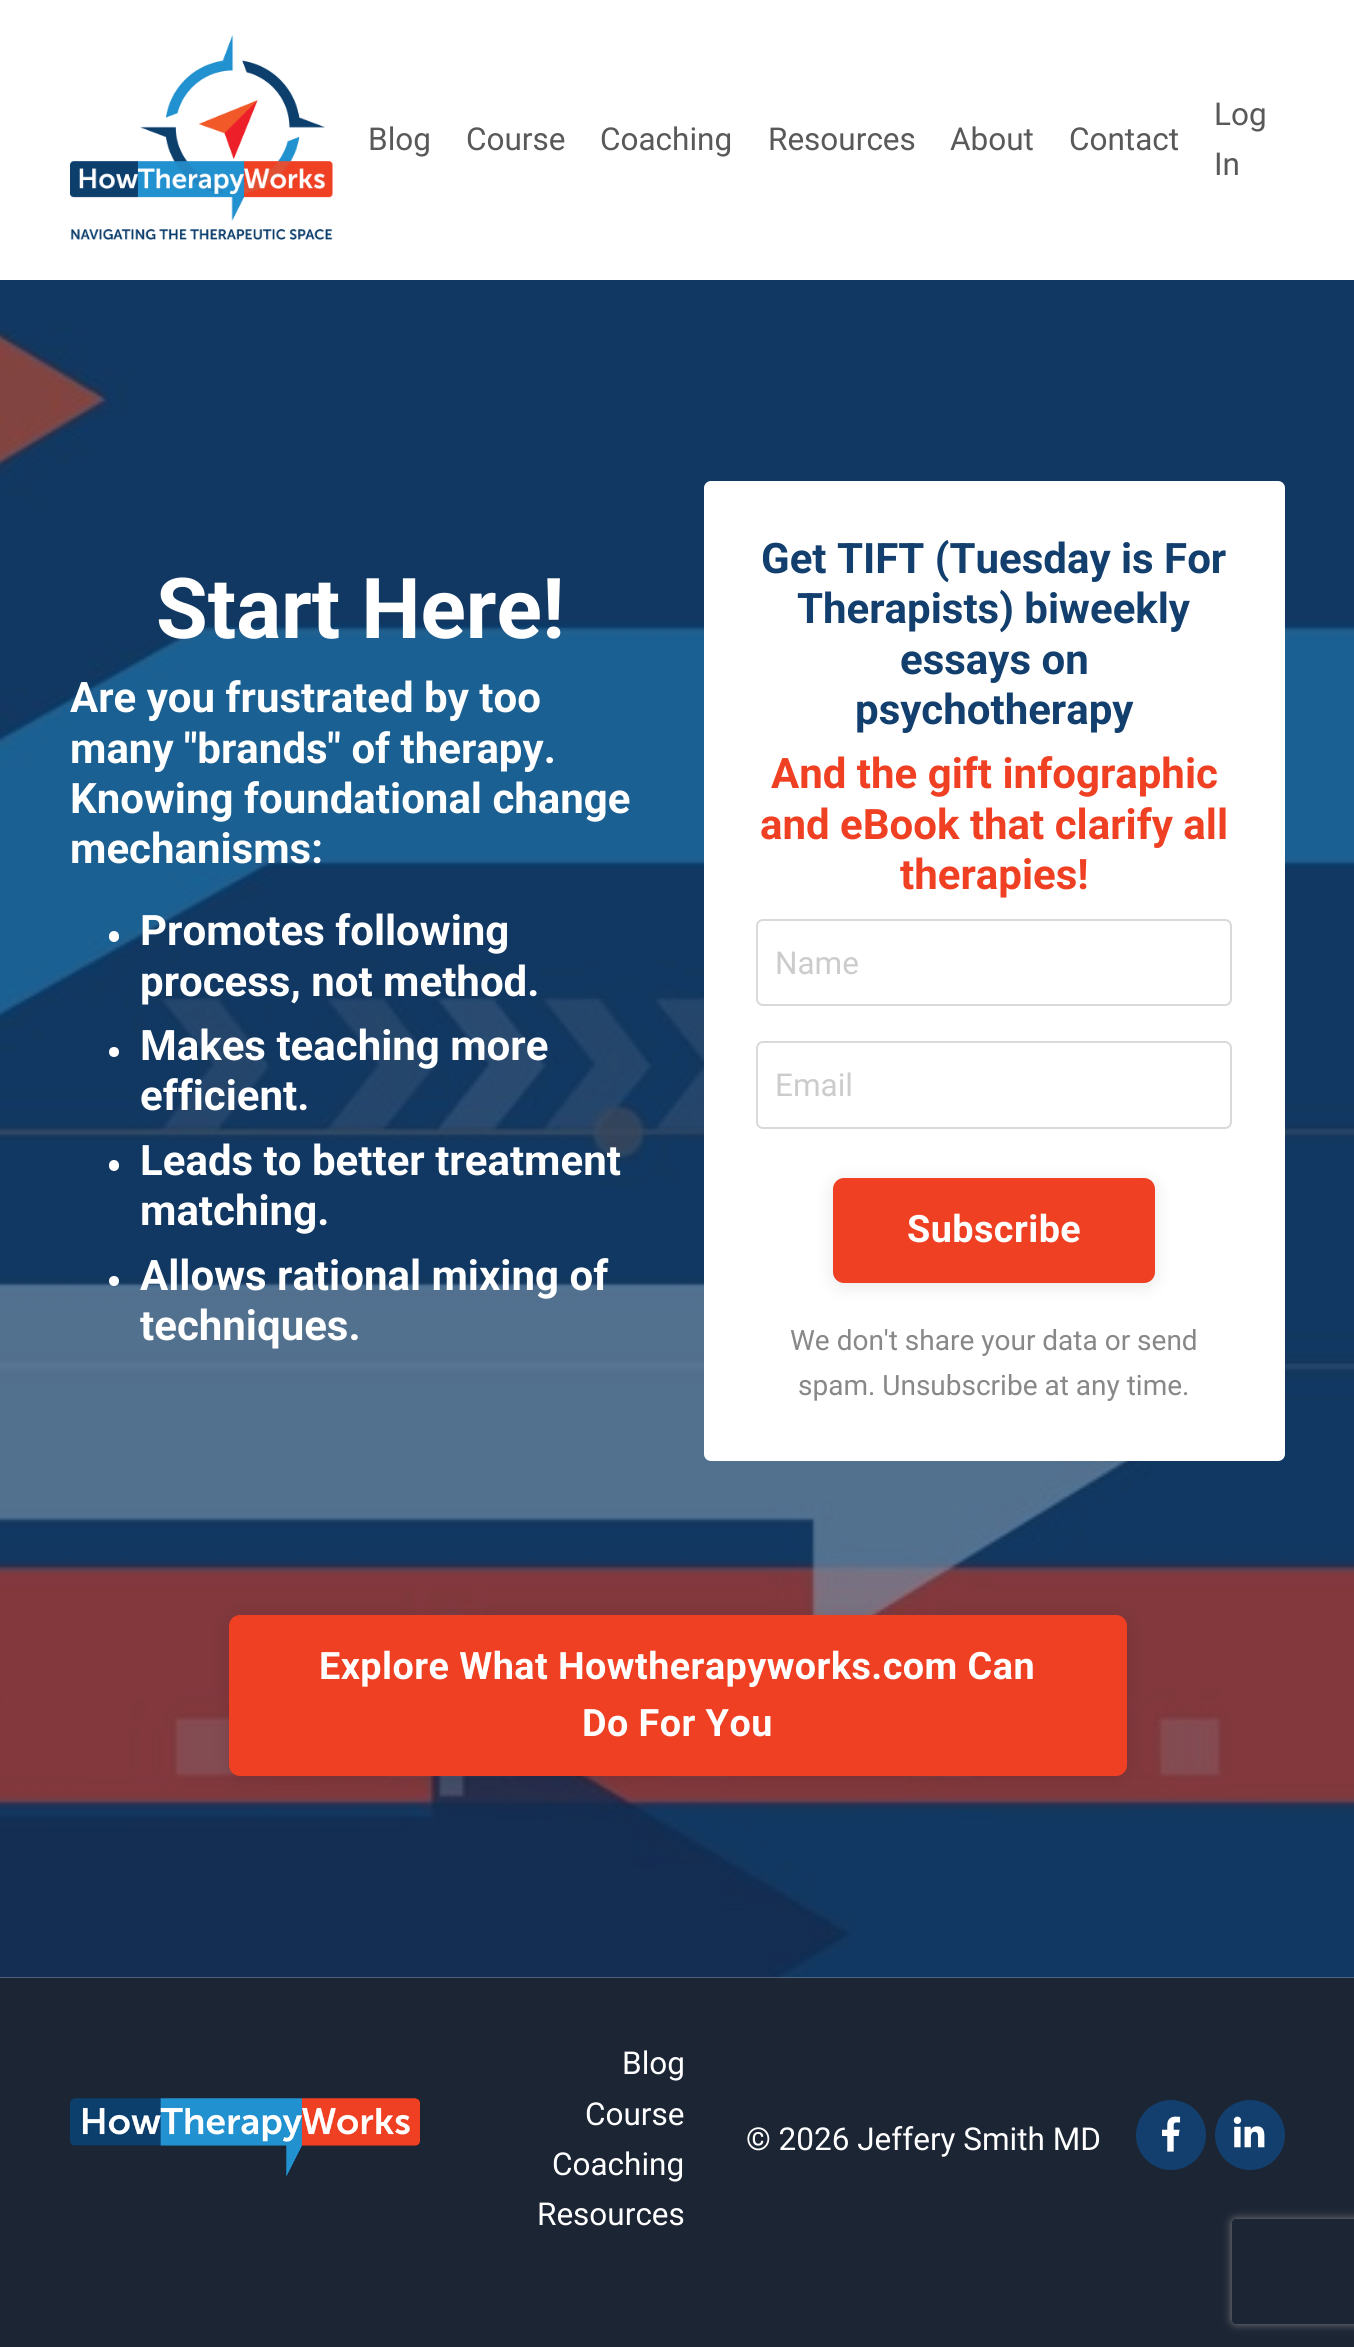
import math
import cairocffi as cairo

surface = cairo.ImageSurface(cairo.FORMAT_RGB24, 1354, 2347)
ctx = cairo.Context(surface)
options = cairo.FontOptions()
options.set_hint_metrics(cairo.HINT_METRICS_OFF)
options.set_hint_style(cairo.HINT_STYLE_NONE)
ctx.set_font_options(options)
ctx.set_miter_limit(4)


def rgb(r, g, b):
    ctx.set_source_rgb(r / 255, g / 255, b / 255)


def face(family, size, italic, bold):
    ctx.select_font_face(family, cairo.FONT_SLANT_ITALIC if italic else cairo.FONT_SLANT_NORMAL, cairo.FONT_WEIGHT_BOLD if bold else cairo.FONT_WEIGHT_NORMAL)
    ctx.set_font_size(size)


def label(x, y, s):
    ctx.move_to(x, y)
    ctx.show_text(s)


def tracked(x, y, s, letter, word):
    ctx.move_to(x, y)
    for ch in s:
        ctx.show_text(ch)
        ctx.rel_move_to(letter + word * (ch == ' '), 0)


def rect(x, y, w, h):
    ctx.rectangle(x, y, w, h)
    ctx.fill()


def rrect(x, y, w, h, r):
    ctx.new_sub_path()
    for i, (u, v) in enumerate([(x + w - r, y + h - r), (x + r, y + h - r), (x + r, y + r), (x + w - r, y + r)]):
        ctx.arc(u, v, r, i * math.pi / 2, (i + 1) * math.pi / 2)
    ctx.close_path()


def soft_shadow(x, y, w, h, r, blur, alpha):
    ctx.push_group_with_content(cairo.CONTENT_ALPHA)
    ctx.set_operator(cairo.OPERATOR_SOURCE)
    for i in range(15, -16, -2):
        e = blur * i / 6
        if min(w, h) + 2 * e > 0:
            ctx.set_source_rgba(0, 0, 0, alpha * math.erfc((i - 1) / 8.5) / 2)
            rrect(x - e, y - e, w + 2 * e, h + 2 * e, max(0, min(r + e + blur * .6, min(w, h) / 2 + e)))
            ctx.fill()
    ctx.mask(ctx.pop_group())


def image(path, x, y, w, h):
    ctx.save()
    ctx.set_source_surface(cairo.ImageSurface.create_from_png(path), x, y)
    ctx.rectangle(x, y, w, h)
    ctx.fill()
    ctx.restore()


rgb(255, 255, 255)
ctx.paint()
rgb(138, 151, 170)
rect(0, 1977, 1354, 1)
image('image0.png', 70, 35, 263, 205)
face('Roboto', 31.5, 0, 0)
rgb(89, 89, 89)
label(368, 150, 'Blog')
label(466, 150, 'Course')
label(600, 150, 'Coaching')
label(768, 150, 'Resources')
label(950, 150, 'About')
label(1069, 150, 'Contact')
label(1214, 125, 'Log')
label(1214, 175, 'In')
image('image1.png', 0, 280, 1354, 1698)
face('Roboto', 84, 0, 1)
rgb(255, 255, 255)
label(156, 638, 'Start Here!')
face('Roboto', 42, 0, 1)
label(70, 712, 'Are you frustrated by too')
label(70, 763, 'many "brands" of therapy.')
label(70, 813, 'Knowing foundational change')
label(70, 863, 'mechanisms:')
rrect(109, 931, 10, 11, 5)
ctx.fill()
label(140, 945, 'Promotes following')
label(140, 996, 'process, not method.')
ctx.new_path()
ctx.arc(114, 1052, 5, 0, 2 * math.pi)
ctx.fill()
label(140, 1060, 'Makes teaching more')
label(140, 1110, 'efficient.')
rrect(109, 1160, 10, 11, 5)
ctx.fill()
label(140, 1175, 'Leads to better treatment')
label(140, 1225, 'matching.')
ctx.new_path()
ctx.arc(114, 1281, 5, 0, 2 * math.pi)
ctx.fill()
label(140, 1290, 'Allows rational mixing of')
label(140, 1340, 'techniques.')
rrect(704, 481, 581, 980, 7)
ctx.fill()
rgb(18, 63, 109)
label(761, 573, 'Get TIFT (Tuesday is For')
label(797, 623, 'Therapists) biweekly')
label(900, 674, 'essays on')
label(855, 724, 'psychotherapy')
rgb(239, 64, 35)
label(771, 788, 'And the gift infographic')
label(760, 839, 'and eBook that clarify all')
label(900, 889, 'therapies!')
rrect(757, 920, 474, 85, 6)
rgb(217, 217, 217)
ctx.stroke()
face('Roboto', 31.5, 0, 0)
rgb(204, 204, 204)
label(775, 974, 'Name')
rrect(757, 1042, 474, 86, 6)
rgb(217, 217, 217)
ctx.stroke()
rgb(204, 204, 204)
label(775, 1096, 'Email')
rgb(0, 0, 0)
soft_shadow(833, 1181, 322, 105, 11, 9, 0.1)
rgb(239, 64, 35)
rrect(835, 1180, 318, 101, 9)
ctx.fill_preserve()
ctx.set_line_width(4)
ctx.stroke()
face('Roboto', 37.75, 0, 1)
rgb(255, 255, 255)
tracked(907, 1242, 'Subscribe', 0.45, 0)
rgb(28, 37, 52)
rect(0, 1978, 1354, 369)
ctx.save()
ctx.set_fill_rule(cairo.FILL_RULE_EVEN_ODD)
ctx.new_path()
ctx.move_to(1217, 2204)
ctx.line_to(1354, 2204)
ctx.line_to(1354, 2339)
ctx.line_to(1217, 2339)
ctx.close_path()
ctx.move_to(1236, 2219)
ctx.line_to(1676, 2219)
ctx.curve_to(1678, 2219, 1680, 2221, 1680, 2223)
ctx.line_to(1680, 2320)
ctx.curve_to(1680, 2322, 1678, 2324, 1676, 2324)
ctx.line_to(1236, 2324)
ctx.curve_to(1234, 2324, 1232, 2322, 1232, 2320)
ctx.line_to(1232, 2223)
ctx.curve_to(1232, 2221, 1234, 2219, 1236, 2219)
ctx.close_path()
ctx.clip()
rgb(128, 128, 128)
soft_shadow(1232, 2219, 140, 105, 4, 4.5, 1)
ctx.restore()
face('Roboto', 28, 0, 0)
rgb(136, 136, 136)
label(790, 1350, 'We don\'t share your data or send')
label(798, 1395, 'spam. Unsubscribe at any time.')
rgb(0, 0, 0)
soft_shadow(229, 1619, 898, 161, 11, 9, 0.1)
rgb(239, 64, 35)
rrect(231, 1617, 894, 157, 9)
ctx.fill_preserve()
ctx.stroke()
face('Roboto', 37.75, 0, 1)
rgb(255, 255, 255)
tracked(319, 1679, 'Explore What Howtherapyworks.com Can', 0.45, 0)
tracked(582, 1736, 'Do For You', 0.45, 0)
image('image2.png', 70, 2098, 350, 79)
face('Roboto', 31.5, 0, 0)
label(622, 2074, 'Blog')
label(585, 2125, 'Course')
label(552, 2175, 'Coaching')
label(537, 2225, 'Resources')
label(746, 2150, '© 2026 Jeffery Smith MD')
rgb(18, 63, 109)
ctx.new_path()
ctx.arc(1171, 2135, 35, 0, 2 * math.pi)
ctx.fill()
image('image3.png', 1162, 2116, 19, 36)
ctx.arc(1250, 2135, 35, 0, 2 * math.pi)
ctx.fill()
image('image4.png', 1233, 2116, 32, 32)
surface.write_to_png('render.png')
